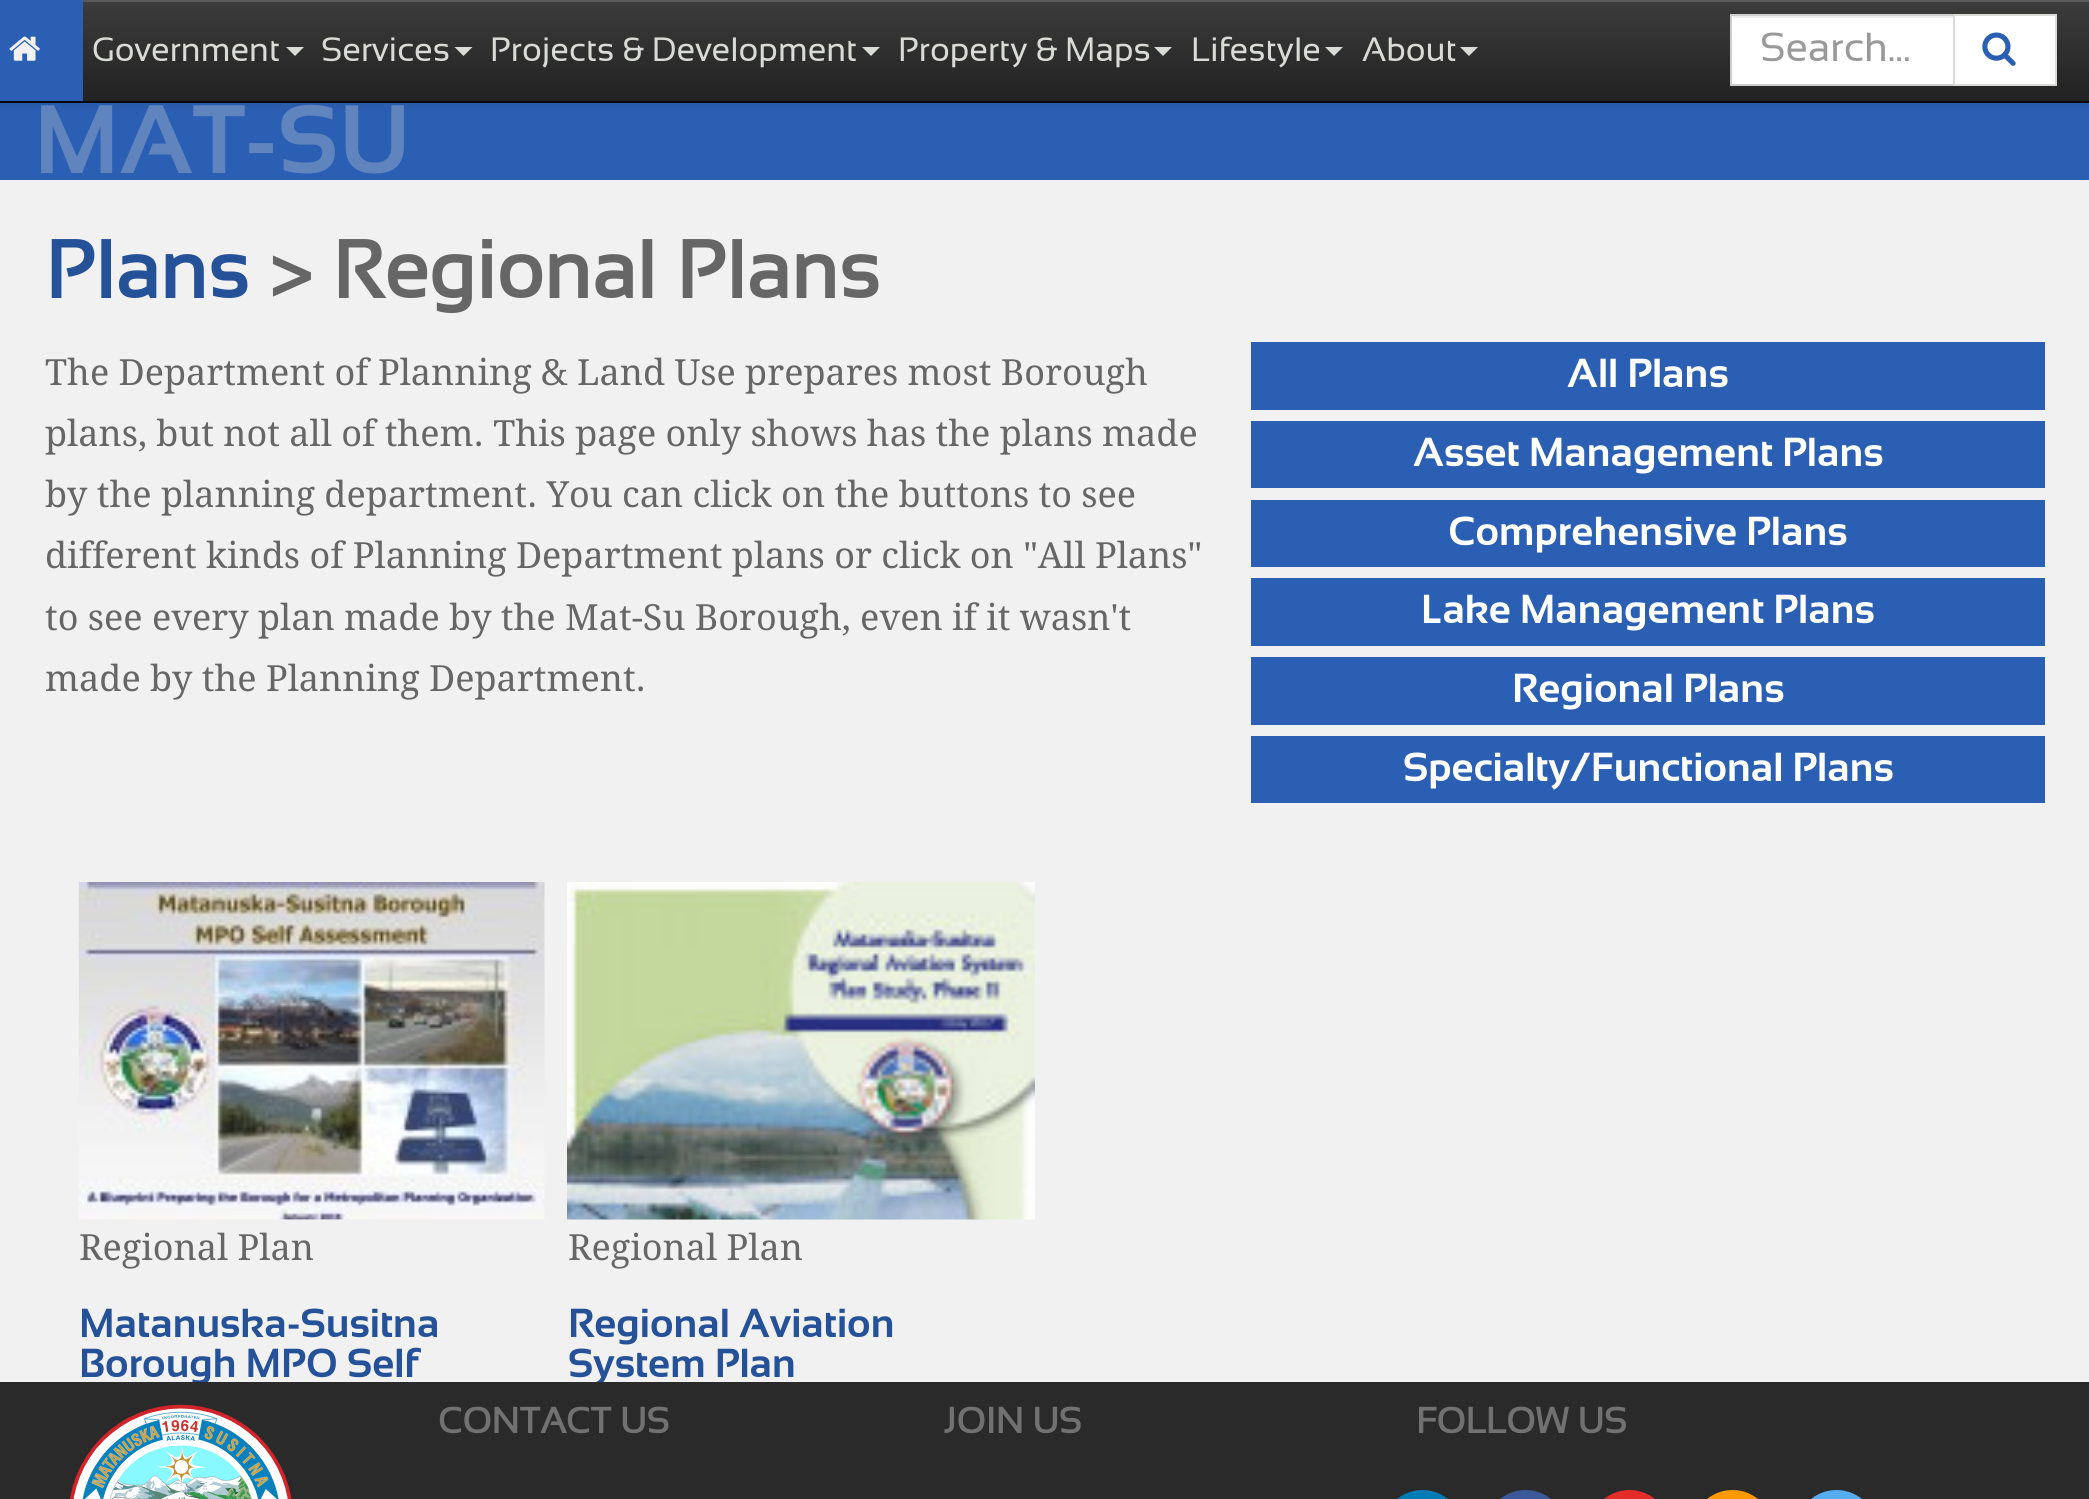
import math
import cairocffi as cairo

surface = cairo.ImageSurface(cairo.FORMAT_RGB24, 2089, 1499)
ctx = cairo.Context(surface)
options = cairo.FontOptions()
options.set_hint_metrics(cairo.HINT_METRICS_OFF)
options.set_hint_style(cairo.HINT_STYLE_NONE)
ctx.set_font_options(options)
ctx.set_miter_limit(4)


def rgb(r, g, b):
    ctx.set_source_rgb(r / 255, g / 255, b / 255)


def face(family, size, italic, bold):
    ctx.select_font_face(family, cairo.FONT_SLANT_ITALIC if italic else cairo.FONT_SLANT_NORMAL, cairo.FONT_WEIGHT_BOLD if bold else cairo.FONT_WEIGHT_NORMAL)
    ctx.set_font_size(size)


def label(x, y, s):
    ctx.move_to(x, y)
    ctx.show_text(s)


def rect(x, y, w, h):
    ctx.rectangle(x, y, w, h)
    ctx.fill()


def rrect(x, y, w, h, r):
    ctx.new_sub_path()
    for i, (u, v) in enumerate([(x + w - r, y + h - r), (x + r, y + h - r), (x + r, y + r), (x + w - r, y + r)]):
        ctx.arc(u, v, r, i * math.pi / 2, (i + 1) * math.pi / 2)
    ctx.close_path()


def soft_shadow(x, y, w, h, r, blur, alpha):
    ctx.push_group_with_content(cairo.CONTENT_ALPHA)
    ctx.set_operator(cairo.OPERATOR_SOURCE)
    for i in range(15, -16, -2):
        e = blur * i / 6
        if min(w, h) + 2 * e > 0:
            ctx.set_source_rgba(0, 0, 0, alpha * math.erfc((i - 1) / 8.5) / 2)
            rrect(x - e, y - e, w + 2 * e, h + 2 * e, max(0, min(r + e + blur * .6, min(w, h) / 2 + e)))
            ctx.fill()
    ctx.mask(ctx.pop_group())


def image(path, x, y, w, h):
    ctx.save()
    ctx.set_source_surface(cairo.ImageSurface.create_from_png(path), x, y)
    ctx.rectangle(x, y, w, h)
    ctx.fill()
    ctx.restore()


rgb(241, 241, 241)
ctx.paint()
rgb(43, 95, 179)
rect(0, 103, 2089, 77)
rgb(0, 0, 0)
soft_shadow(0, 2, 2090, 104, 0, 5.5, 0.07)
gradient = cairo.LinearGradient(1045, 0, 1045, 101)
gradient.add_color_stop_rgba(0, 0.235, 0.235, 0.235, 1)
gradient.add_color_stop_rgba(1, 0.133, 0.133, 0.133, 1)
ctx.set_source(gradient)
rect(83, 2, 2006, 99)
rgb(89, 89, 89)
rect(83, 0, 2006, 2)
rgb(8, 8, 8)
rect(0, 101, 2089, 2)
rgb(43, 95, 179)
rect(0, 0, 83, 101)
image('image0.png', 9, 36, 31, 25)
face('Sansation', 33.75, 0, 0)
rgb(216, 219, 214)
label(92, 61, 'Government')
ctx.new_path()
ctx.move_to(286, 47)
ctx.line_to(304, 47)
ctx.line_to(295, 56)
ctx.close_path()
ctx.fill()
label(321, 61, 'Services')
ctx.new_path()
ctx.move_to(454.5, 47)
ctx.line_to(472.5, 47)
ctx.line_to(463.5, 56)
ctx.close_path()
ctx.fill()
label(490, 61, 'Projects & Development')
ctx.new_path()
ctx.move_to(862, 47)
ctx.line_to(880, 47)
ctx.line_to(871, 56)
ctx.close_path()
ctx.fill()
label(898, 61, 'Property & Maps')
ctx.new_path()
ctx.move_to(1154, 47)
ctx.line_to(1172, 47)
ctx.line_to(1163, 56)
ctx.close_path()
ctx.fill()
label(1191, 61, 'Lifestyle')
ctx.new_path()
ctx.move_to(1325, 47)
ctx.line_to(1343, 47)
ctx.line_to(1334, 56)
ctx.close_path()
ctx.fill()
label(1362, 61, 'About')
ctx.new_path()
ctx.move_to(1460, 47)
ctx.line_to(1478, 47)
ctx.line_to(1469, 56)
ctx.close_path()
ctx.fill()
rgb(255, 255, 255)
rect(1732, 16, 221, 68)
rgb(236, 236, 236)
rect(1733, 16, 220, 2)
ctx.rectangle(1731, 15, 223, 70)
rgb(204, 204, 204)
ctx.stroke()
face('Sansation', 40.5, 0, 0)
rgb(153, 153, 153)
label(1760, 61, 'Search...')
rgb(255, 255, 255)
ctx.rectangle(1954, 15, 102, 70)
ctx.fill_preserve()
rgb(216, 219, 214)
ctx.stroke()
image('image1.png', 1982, 32, 34, 34)
face('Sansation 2', 97, 0, 1)
rgb(95, 132, 190)
label(34, 173, 'MAT-SU')
face('Sansation', 81, 0, 1)
rgb(37, 81, 152)
label(45, 298, 'Plans')
rgb(102, 102, 102)
label(269, 298, '> Regional Plans')
face('Droid Serif', 36, 0, 0)
label(45, 385, 'The Department of Planning & Land Use prepares most Borough')
label(45, 446, 'plans, but not all of them. This page only shows has the plans made')
label(45, 507, 'by the planning department. You can click on the buttons to see')
label(45, 568, 'different kinds of Planning Department plans or click on "All Plans"')
label(45, 630, 'to see every plan made by the Mat-Su Borough, even if it wasn\'t')
label(45, 691, 'made by the Planning Department.')
rgb(43, 95, 179)
rect(1251, 342, 794, 68)
face('Sansation 2', 40.5, 0, 1)
rgb(255, 255, 255)
label(1567, 387, 'All Plans')
rgb(43, 95, 179)
rect(1251, 421, 794, 67)
rgb(255, 255, 255)
label(1413, 466, 'Asset Management Plans')
rgb(43, 95, 179)
rect(1251, 500, 794, 67)
rgb(255, 255, 255)
label(1448, 545, 'Comprehensive Plans')
rgb(43, 95, 179)
rect(1251, 578, 794, 68)
rgb(255, 255, 255)
label(1421, 623, 'Lake Management Plans')
rgb(43, 95, 179)
rect(1251, 657, 794, 68)
rgb(255, 255, 255)
label(1512, 702, 'Regional Plans')
rgb(43, 95, 179)
rect(1251, 736, 794, 67)
rgb(255, 255, 255)
label(1403, 781, 'Specialty/Functional Plans')
image('image2.png', 78, 882, 467, 338)
face('Droid Serif', 36, 0, 0)
rgb(102, 102, 102)
label(79, 1260, 'Regional Plan')
face('Sansation 2', 40.5, 0, 1)
rgb(37, 81, 152)
label(79, 1337, 'Matanuska-Susitna')
label(79, 1377, 'Borough MPO Self')
image('image3.png', 567, 882, 468, 338)
face('Droid Serif', 36, 0, 0)
rgb(102, 102, 102)
label(568, 1260, 'Regional Plan')
face('Sansation 2', 40.5, 0, 1)
rgb(37, 81, 152)
label(568, 1337, 'Regional Aviation')
label(568, 1377, 'System Plan')
rgb(42, 42, 42)
rect(0, 1382, 2089, 117)
image('image4.png', 70, 1404, 222, 95)
face('Sansation', 36, 0, 1)
rgb(113, 113, 113)
label(438, 1433, 'CONTACT US')
label(944, 1433, 'JOIN US')
label(1416, 1433, 'FOLLOW US')
rgb(0, 123, 182)
rrect(1382, 1490, 81, 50, 40.5)
ctx.fill()
rgb(59, 89, 152)
rrect(1485, 1490, 81, 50, 40.5)
ctx.fill()
rgb(229, 45, 39)
rrect(1589, 1490, 81, 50, 40.5)
ctx.fill()
rgb(254, 153, 1)
rrect(1692, 1490, 81, 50, 40.5)
ctx.fill()
rgb(85, 172, 238)
rrect(1796, 1490, 81, 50, 40.5)
ctx.fill()
surface.write_to_png('render.png')
